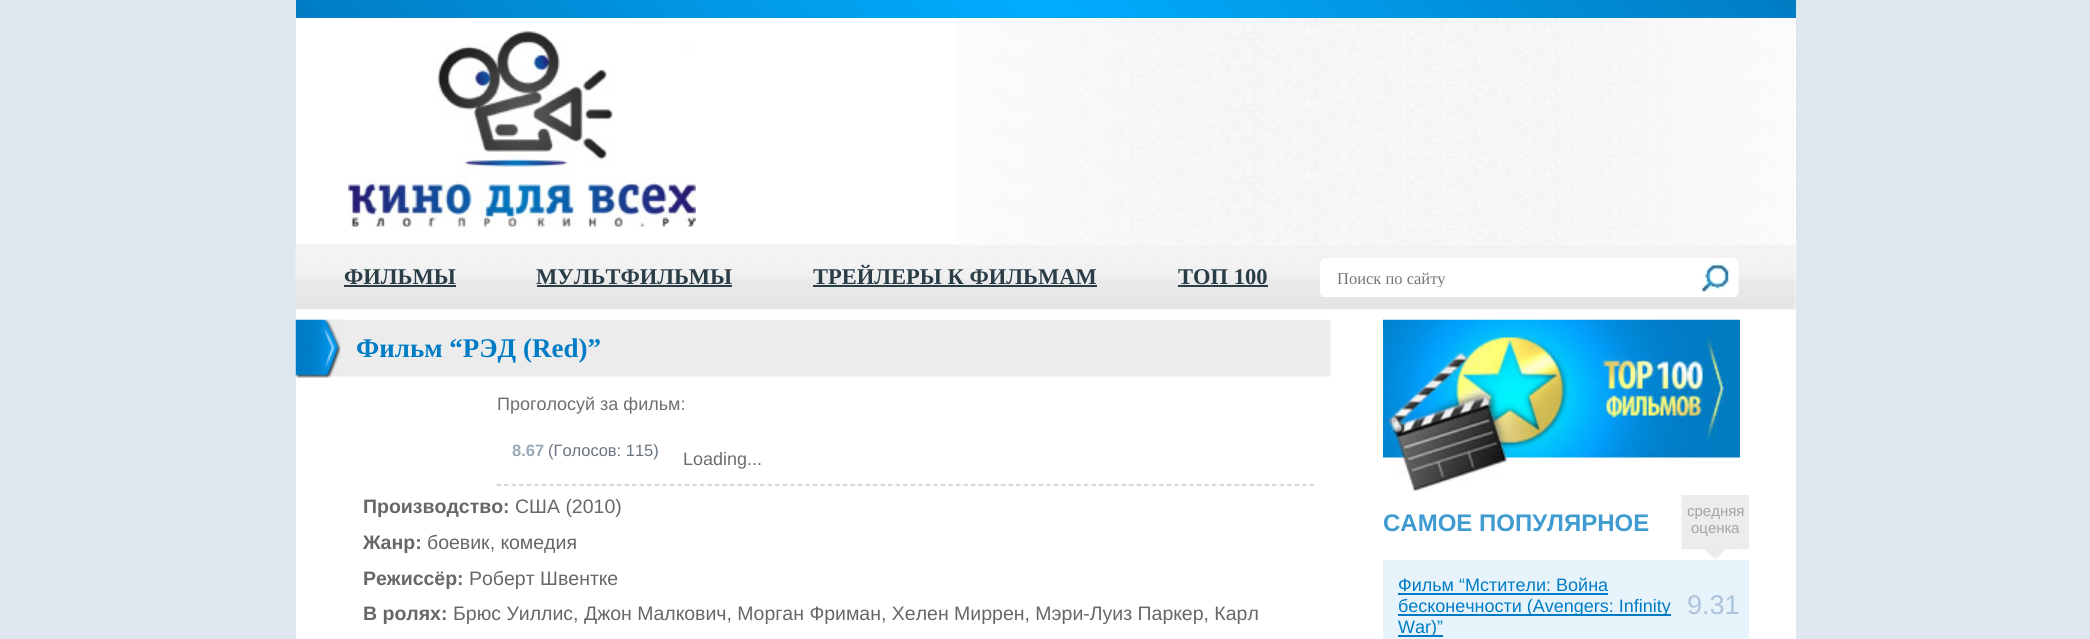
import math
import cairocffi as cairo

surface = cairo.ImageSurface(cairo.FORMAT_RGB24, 2090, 639)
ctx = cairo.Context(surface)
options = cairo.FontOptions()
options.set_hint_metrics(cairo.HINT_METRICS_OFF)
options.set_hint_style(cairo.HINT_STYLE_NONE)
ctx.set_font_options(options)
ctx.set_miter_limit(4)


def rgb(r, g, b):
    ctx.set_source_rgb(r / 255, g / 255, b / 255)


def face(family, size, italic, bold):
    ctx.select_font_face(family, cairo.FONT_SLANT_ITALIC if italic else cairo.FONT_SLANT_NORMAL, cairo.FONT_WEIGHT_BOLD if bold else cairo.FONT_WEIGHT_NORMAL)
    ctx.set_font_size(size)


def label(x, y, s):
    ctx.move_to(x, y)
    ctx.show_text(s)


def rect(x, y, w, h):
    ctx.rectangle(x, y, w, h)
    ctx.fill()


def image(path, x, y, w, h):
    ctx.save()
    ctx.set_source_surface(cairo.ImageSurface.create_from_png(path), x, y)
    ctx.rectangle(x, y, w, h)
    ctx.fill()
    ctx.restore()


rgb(222, 231, 238)
ctx.paint()
rgb(255, 255, 255)
rect(296, 18, 1500, 621)
gradient = cairo.LinearGradient(666, 389, 1425, -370)
gradient.add_color_stop_rgba(0, 0, 0.486, 0.761, 1)
gradient.add_color_stop_rgba(0.5, 0.004, 0.678, 1, 1)
gradient.add_color_stop_rgba(1, 0, 0.486, 0.761, 1)
ctx.set_source(gradient)
rect(296, 0, 1500, 18)
image('image0.png', 957, 18, 838, 226)
image('image1.png', 348, 31, 348, 196)
image('image2.png', 295, 244, 1501, 67)
face('Liberation Serif', 22.5, 0, 1)
rgb(42, 60, 70)
label(344, 284, 'ФИЛЬМЫ')
rect(344, 285, 112, 2)
label(536, 284, 'МУЛЬТФИЛЬМЫ')
rect(537, 285, 195, 2)
label(813, 284, 'ТРЕЙЛЕРЫ К ФИЛЬМАМ')
rect(813, 285, 284, 2)
label(1178, 284, 'ТОП 100')
rect(1178, 285, 90, 2)
image('image3.png', 1320, 258, 419, 39)
ctx.save()
ctx.rectangle(1337, 269, 343, 18)
ctx.clip()
face('Liberation Serif', 16.5, 0, 0)
rgb(117, 117, 117)
label(1337, 284, 'Поиск по сайту')
ctx.restore()
image('image4.png', 295, 319, 1036, 59)
image('image5.png', 295, 319, 46, 59)
face('Liberation Serif', 27, 0, 1)
rgb(0, 124, 198)
label(356, 357, 'Фильм “РЭД (Red)”')
ctx.new_path()
ctx.move_to(496.5, 485)
ctx.line_to(1314, 485)
rgb(192, 204, 216)
ctx.set_line_width(1.5)
ctx.set_dash([4.5, 3.03])
ctx.stroke()
face('Liberation Sans', 18, 0, 0)
rgb(112, 110, 109)
label(497, 410, 'Проголосуй за фильм:')
face('Liberation Sans', 16.5, 0, 1)
rgb(153, 169, 184)
label(512, 456, '8.67')
face('Liberation Sans', 16.5, 0, 0)
rgb(106, 116, 128)
label(548, 456, '(Голосов: 115)')
face('Liberation Sans', 18, 0, 0)
rgb(112, 110, 109)
label(683, 465, 'Loading...')
face('Liberation Sans', 19.5, 0, 1)
rgb(103, 103, 103)
label(363, 513, 'Производство:')
face('Liberation Sans', 19.5, 0, 0)
label(515, 513, 'США (2010)')
face('Liberation Sans', 19.5, 0, 1)
label(363, 549, 'Жанр:')
face('Liberation Sans', 19.5, 0, 0)
label(427, 549, 'боевик, комедия')
face('Liberation Sans', 19.5, 0, 1)
label(363, 585, 'Режиссёр:')
face('Liberation Sans', 19.5, 0, 0)
label(469, 585, 'Роберт Швентке')
face('Liberation Sans', 19.5, 0, 1)
label(363, 620, 'В ролях:')
face('Liberation Sans', 19.5, 0, 0)
label(453, 620, 'Брюс Уиллис, Джон Малкович, Морган Фриман, Хелен Миррен, Мэри-Луиз Паркер, Карл')
image('image6.png', 1383, 319, 357, 172)
face('Liberation Sans', 24, 0, 1)
rgb(64, 155, 208)
label(1383, 531, 'САМОЕ ПОПУЛЯРНОЕ')
image('image7.png', 1681, 495, 68, 65)
face('Liberation Sans', 15, 0, 0)
rgb(164, 164, 164)
label(1687, 516, 'средняя')
label(1691, 533, 'оценка')
rgb(230, 243, 251)
rect(1383, 560, 366, 79)
face('Liberation Sans', 18, 0, 0)
rgb(0, 124, 198)
label(1398, 591, 'Фильм “Мстители: Война')
rgb(2, 122, 198)
rect(1398, 593, 210, 2)
rect(1398, 614, 273, 2)
rgb(0, 124, 198)
label(1398, 612, 'бесконечности (Avengers: Infinity')
rgb(2, 122, 198)
rect(1398, 635, 45, 2)
rgb(0, 124, 198)
label(1398, 633, 'War)”')
face('Liberation Sans', 27, 0, 0)
rgb(173, 195, 218)
label(1687, 614, '9.31')
surface.write_to_png('render.png')
